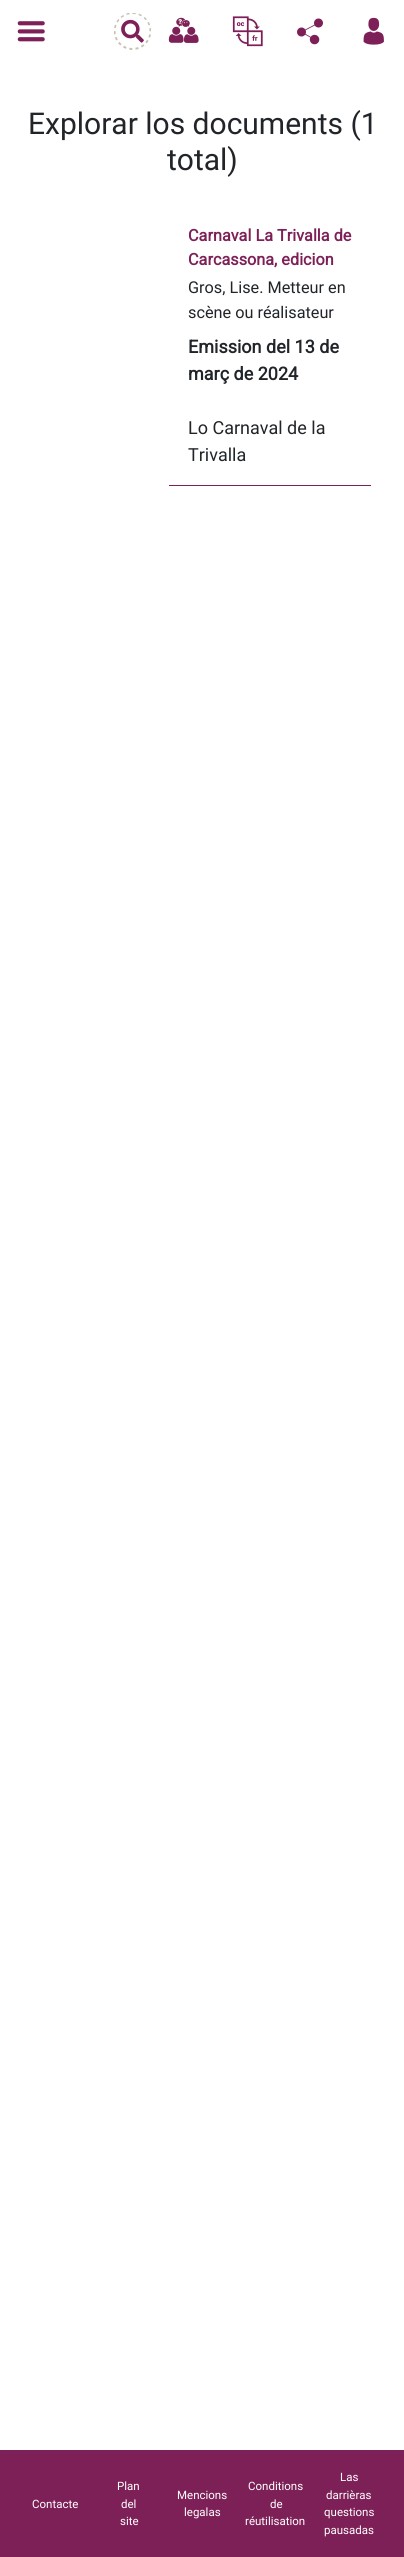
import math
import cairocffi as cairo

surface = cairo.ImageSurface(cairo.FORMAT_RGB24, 404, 2557)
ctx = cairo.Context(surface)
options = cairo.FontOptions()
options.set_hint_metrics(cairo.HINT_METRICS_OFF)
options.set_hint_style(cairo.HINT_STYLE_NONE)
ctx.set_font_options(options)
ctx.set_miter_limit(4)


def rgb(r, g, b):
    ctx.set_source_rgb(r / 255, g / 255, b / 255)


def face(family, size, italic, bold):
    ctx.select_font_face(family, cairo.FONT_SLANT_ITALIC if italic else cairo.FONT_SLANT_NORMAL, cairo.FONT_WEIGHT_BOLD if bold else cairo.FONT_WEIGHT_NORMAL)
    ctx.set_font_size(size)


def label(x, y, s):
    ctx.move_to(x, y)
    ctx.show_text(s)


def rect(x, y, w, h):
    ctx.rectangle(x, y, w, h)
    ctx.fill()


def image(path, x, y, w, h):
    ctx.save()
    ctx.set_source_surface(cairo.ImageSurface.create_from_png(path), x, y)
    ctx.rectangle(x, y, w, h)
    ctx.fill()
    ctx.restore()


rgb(255, 255, 255)
ctx.paint()
image('image0.png', 17, 21, 28, 21)
image('image1.png', 114, 13, 37, 37)
image('image2.png', 168, 17, 31, 26)
image('image3.png', 232, 16, 31, 31)
image('image4.png', 297, 18, 26, 27)
image('image5.png', 363, 17, 21, 28)
face('Roboto', 30, 0, 0)
rgb(33, 37, 41)
label(28, 134, 'Explorar los documents (1')
label(167, 170, 'total)')
rgb(125, 32, 87)
rect(169, 485, 202, 1)
face('Roboto', 16.25, 0, 1)
label(188, 241, 'Carnaval La Trivalla de')
label(188, 265, 'Carcassona, edicion')
face('Roboto', 16.25, 0, 0)
rgb(33, 37, 41)
label(188, 293, 'Gros, Lise. Metteur en')
label(188, 318, 'scène ou réalisateur')
face('Roboto', 18, 0, 1)
label(188, 353, 'Emission del 13 de')
label(188, 380, 'març de 2024')
face('Roboto', 18, 0, 0)
label(188, 434, 'Lo Carnaval de la')
label(188, 461, 'Trivalla')
rgb(125, 32, 87)
rect(0, 2450, 404, 107)
face('Roboto', 11.5, 0, 0)
rgb(255, 255, 255)
label(32, 2508, 'Contacte')
label(117, 2490, 'Plan')
label(121, 2508, 'del')
label(120, 2525, 'site')
label(177, 2499, 'Mencions')
label(184, 2516, 'legalas')
label(248, 2490, 'Conditions')
label(270, 2508, 'de')
label(245, 2525, 'réutilisation')
label(340, 2481, 'Las')
label(326, 2499, 'darrièras')
label(324, 2516, 'questions')
label(324, 2534, 'pausadas')
surface.write_to_png('render.png')
